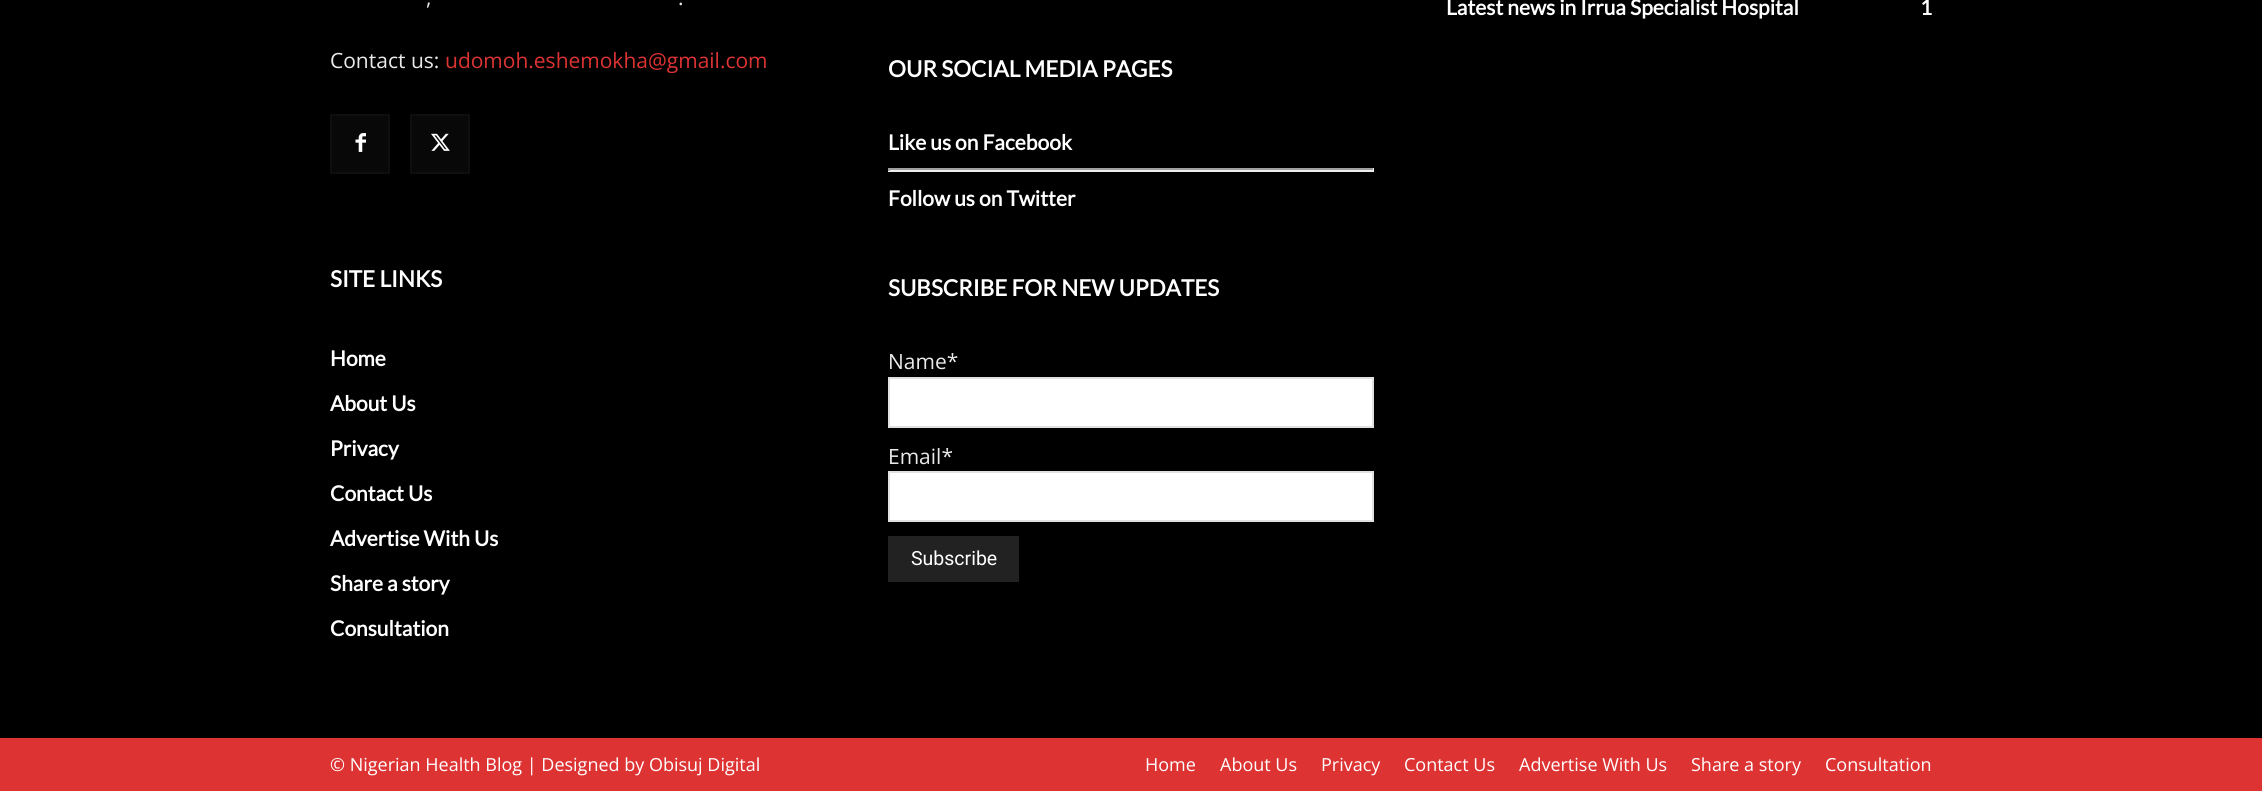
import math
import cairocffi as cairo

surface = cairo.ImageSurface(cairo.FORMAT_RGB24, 2262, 791)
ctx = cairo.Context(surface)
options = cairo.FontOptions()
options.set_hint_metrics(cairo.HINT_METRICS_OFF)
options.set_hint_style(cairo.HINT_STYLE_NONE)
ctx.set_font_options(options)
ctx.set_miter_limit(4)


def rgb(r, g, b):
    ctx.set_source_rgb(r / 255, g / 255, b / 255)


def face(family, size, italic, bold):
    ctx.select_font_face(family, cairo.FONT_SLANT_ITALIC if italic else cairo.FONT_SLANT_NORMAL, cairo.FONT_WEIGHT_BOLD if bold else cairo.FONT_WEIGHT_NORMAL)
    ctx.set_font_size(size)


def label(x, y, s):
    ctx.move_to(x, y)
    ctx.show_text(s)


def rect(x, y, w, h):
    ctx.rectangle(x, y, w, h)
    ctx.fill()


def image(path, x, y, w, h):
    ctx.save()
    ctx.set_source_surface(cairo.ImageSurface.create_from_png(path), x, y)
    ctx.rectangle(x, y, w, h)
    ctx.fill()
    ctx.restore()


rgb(221, 51, 51)
ctx.paint()
rgb(0, 0, 0)
rect(0, 0, 2262, 738)
face('Open Sans', 21, 0, 0)
rgb(234, 234, 234)
label(426, 5, ',')
label(678, 5, '.')
label(330, 68, 'Contact us:')
rgb(221, 51, 51)
label(445, 68, 'udomoh.eshemokha@gmail.com')
rgb(8, 8, 8)
rect(332, 116, 56, 56)
image('image0.png', 355, 133, 11, 19)
ctx.rectangle(331, 115, 58, 58)
rgb(15, 15, 15)
ctx.stroke()
rgb(8, 8, 8)
rect(412, 116, 56, 56)
image('image1.png', 431, 133, 19, 18)
ctx.rectangle(411, 115, 58, 58)
rgb(15, 15, 15)
ctx.stroke()
face('Lato', 22.5, 0, 1)
rgb(255, 255, 255)
label(330, 287, 'SITE LINKS')
face('Lato', 21, 0, 1)
label(330, 366, 'Home')
label(330, 411, 'About Us')
label(330, 456, 'Privacy')
label(330, 501, 'Contact Us')
label(330, 546, 'Advertise With Us')
label(330, 591, 'Share a story')
label(330, 636, 'Consultation')
face('Lato', 22.5, 0, 1)
label(888, 77, 'OUR SOCIAL MEDIA PAGES')
face('Lato', 21, 0, 1)
label(888, 150, 'Like us on Facebook')
rgb(159, 159, 159)
rect(888, 168, 486, 2)
rgb(238, 238, 238)
rect(1373, 168, 1, 3)
rect(888, 170, 486, 2)
rgb(159, 159, 159)
rect(888, 168, 2, 3)
rgb(255, 255, 255)
label(888, 206, 'Follow us on Twitter')
face('Lato', 22.5, 0, 1)
label(888, 296, 'SUBSCRIBE FOR NEW UPDATES')
face('Open Sans', 21, 0, 0)
rgb(234, 234, 234)
label(888, 369, 'Name*')
rgb(255, 255, 255)
ctx.rectangle(889, 378, 484, 49)
ctx.fill_preserve()
rgb(225, 225, 225)
ctx.stroke()
rgb(234, 234, 234)
label(888, 464, 'Email*')
rgb(255, 255, 255)
ctx.rectangle(889, 472, 484, 49)
ctx.fill_preserve()
rgb(225, 225, 225)
ctx.stroke()
rgb(34, 34, 34)
rect(888, 536, 131, 46)
face('Roboto', 19.5, 0, 0)
rgb(255, 255, 255)
label(911, 565, 'Subscribe')
face('Lato', 21, 0, 1)
label(1446, 15, 'Latest news in Irrua Specialist Hospital')
label(1920, 15, '1')
face('Open Sans', 18, 0, 0)
label(330, 771, '© Nigerian Health Blog | Designed by Obisuj Digital')
label(1145, 771, 'Home')
label(1220, 771, 'About Us')
label(1321, 771, 'Privacy')
label(1404, 771, 'Contact Us')
label(1519, 771, 'Advertise With Us')
label(1691, 771, 'Share a story')
label(1825, 771, 'Consultation')
surface.write_to_png('render.png')
